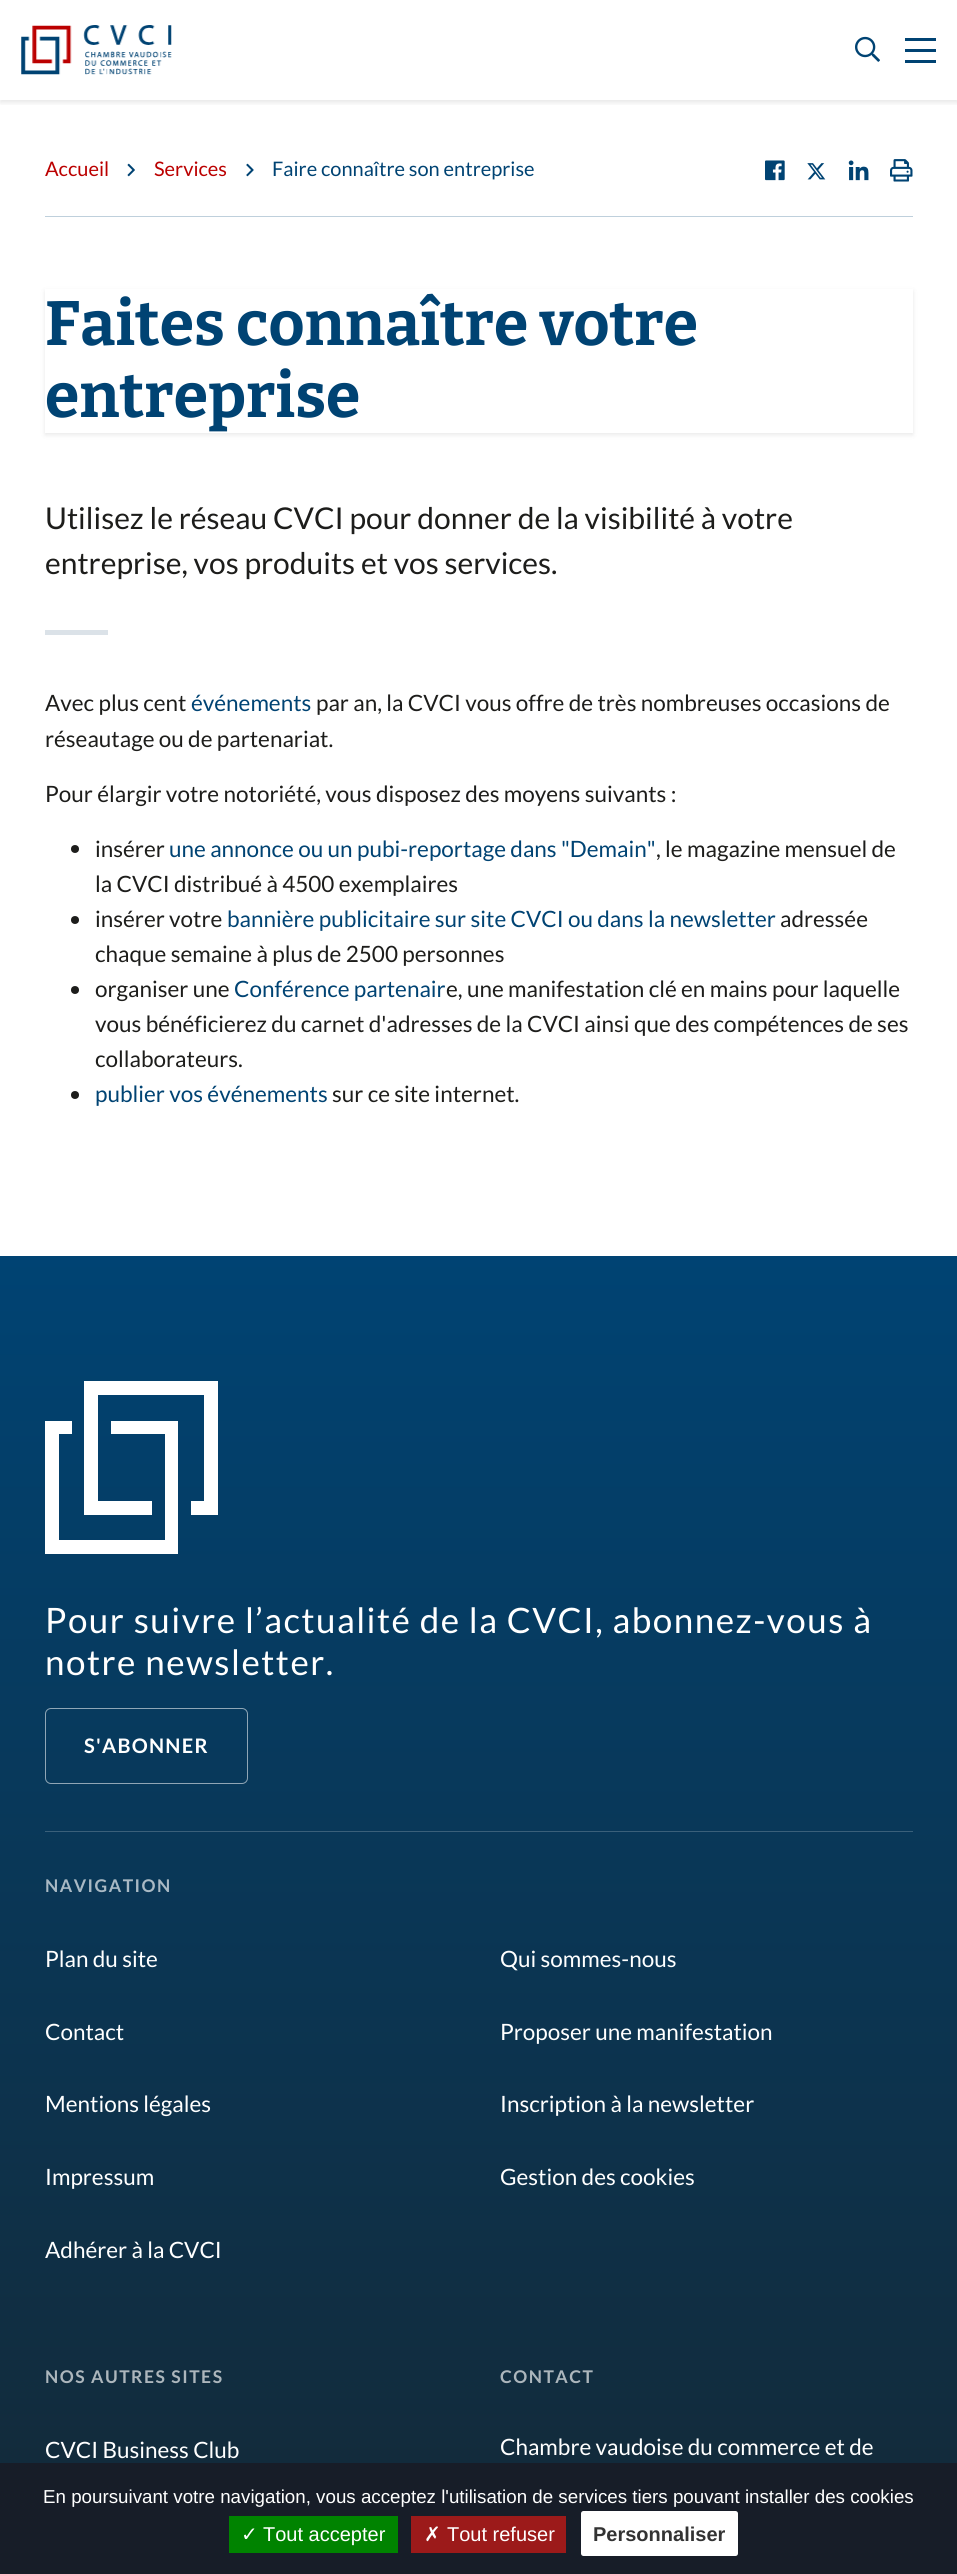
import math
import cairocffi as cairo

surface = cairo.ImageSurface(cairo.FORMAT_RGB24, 957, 2574)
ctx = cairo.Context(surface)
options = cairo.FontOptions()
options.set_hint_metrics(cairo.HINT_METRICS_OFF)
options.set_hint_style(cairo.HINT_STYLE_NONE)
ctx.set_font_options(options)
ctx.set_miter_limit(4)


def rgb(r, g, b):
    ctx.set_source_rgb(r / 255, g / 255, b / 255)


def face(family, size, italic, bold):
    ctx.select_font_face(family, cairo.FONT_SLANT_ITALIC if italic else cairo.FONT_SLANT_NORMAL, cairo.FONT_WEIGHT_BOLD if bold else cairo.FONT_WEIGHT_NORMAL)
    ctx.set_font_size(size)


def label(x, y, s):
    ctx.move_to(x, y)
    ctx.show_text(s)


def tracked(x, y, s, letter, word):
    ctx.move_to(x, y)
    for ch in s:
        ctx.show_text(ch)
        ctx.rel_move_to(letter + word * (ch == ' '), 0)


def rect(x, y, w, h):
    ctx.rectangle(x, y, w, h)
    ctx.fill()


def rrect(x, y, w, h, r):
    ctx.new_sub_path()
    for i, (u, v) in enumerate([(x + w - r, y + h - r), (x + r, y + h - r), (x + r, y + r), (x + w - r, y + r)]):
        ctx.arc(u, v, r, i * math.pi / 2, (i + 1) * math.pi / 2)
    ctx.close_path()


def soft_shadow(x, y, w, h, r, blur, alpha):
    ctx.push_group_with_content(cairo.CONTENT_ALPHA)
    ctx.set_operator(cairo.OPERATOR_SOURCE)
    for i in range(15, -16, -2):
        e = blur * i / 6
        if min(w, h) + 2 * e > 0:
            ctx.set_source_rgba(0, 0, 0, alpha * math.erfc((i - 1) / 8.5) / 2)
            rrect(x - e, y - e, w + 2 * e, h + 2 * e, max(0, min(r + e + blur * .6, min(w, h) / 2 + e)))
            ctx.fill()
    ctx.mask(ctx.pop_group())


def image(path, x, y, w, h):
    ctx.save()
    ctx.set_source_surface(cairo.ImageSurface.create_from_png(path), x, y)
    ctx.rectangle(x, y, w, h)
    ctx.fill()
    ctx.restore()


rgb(255, 255, 255)
ctx.paint()
ctx.save()
ctx.rectangle(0, 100, 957, 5)
ctx.clip()
rgb(0, 0, 0)
soft_shadow(0, 3, 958, 100, 0, 2.5, 0.09)
ctx.restore()
image('image0.png', 21, 25, 151, 50)
image('image1.png', 855, 36, 25, 26)
rgb(0, 67, 115)
rect(905, 38, 31, 3)
rect(905, 49, 31, 3)
rect(905, 60, 31, 3)
rgb(191, 208, 220)
rect(45, 216, 868, 1)
face('Lato', 20, 0, 0)
rgb(187, 0, 0)
label(45, 176, 'Accueil')
image('image2.png', 127, 163, 8, 14)
label(154, 176, 'Services')
image('image3.png', 246, 163, 8, 14)
rgb(0, 67, 115)
label(272, 176, 'Faire connaître son entreprise')
image('image4.png', 765, 160, 20, 21)
image('image5.png', 807, 163, 19, 17)
image('image6.png', 848, 160, 21, 21)
image('image7.png', 890, 159, 23, 23)
ctx.save()
ctx.set_fill_rule(cairo.FILL_RULE_EVEN_ODD)
ctx.new_path()
ctx.move_to(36, 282)
ctx.line_to(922, 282)
ctx.line_to(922, 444)
ctx.line_to(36, 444)
ctx.close_path()
ctx.move_to(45, 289)
ctx.line_to(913, 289)
ctx.line_to(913, 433)
ctx.line_to(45, 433)
ctx.close_path()
ctx.clip()
rgb(0, 0, 0)
soft_shadow(45, 291, 868, 144, 0, 2.5, 0.09)
ctx.restore()
face('Bitter', 62.5, 0, 1)
label(45, 345, 'Faites connaître votre')
label(45, 417, 'entreprise')
face('Lato', 30, 0, 0)
rgb(29, 29, 27)
label(45, 529, 'Utilisez le réseau CVCI pour donner de la visibilité à votre')
label(45, 574, 'entreprise, vos produits et vos services.')
rgb(219, 226, 232)
rect(45, 630, 63, 5)
face('Lato', 22.5, 0, 0)
rgb(29, 29, 27)
label(45, 711, 'Avec plus cent')
rgb(0, 67, 115)
label(191, 711, 'événements')
rgb(29, 29, 27)
label(316, 711, 'par an, la CVCI vous offre de très nombreuses occasions de')
label(45, 747, 'réseautage ou de partenariat.')
label(45, 802, 'Pour élargir votre notoriété, vous disposez des moyens suivants :')
ctx.new_path()
ctx.arc(75, 849, 4, 0, 2 * math.pi)
ctx.fill()
label(95, 857, 'insérer')
rgb(0, 67, 115)
label(169, 857, 'une annonce ou un pubi-reportage dans "Demain"')
rgb(29, 29, 27)
label(656, 857, ', le magazine mensuel de')
label(95, 892, 'la CVCI distribué à 4500 exemplaires')
ctx.new_path()
ctx.arc(75, 920, 4, 0, 2 * math.pi)
ctx.fill()
label(95, 927, 'insérer votre')
rgb(0, 67, 115)
label(227, 927, 'bannière publicitaire sur site CVCI ou dans la newsletter')
rgb(29, 29, 27)
label(780, 927, 'adressée')
label(95, 962, 'chaque semaine à plus de 2500 personnes')
ctx.new_path()
ctx.arc(75, 990, 4, 0, 2 * math.pi)
ctx.fill()
label(95, 997, 'organiser une')
rgb(0, 67, 115)
label(234, 997, 'Conférence partenair')
rgb(29, 29, 27)
label(446, 997, 'e, une manifestation clé en mains pour laquelle')
label(95, 1032, 'vous bénéficierez du carnet d\'adresses de la CVCI ainsi que des compétences de ses')
label(95, 1067, 'collaborateurs.')
ctx.new_path()
ctx.arc(75, 1095, 4, 0, 2 * math.pi)
ctx.fill()
rgb(0, 67, 115)
label(95, 1102, 'publier vos événements')
rgb(29, 29, 27)
label(332, 1102, 'sur ce site internet.')
gradient = cairo.LinearGradient(479, 1256, 479, 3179)
gradient.add_color_stop_rgba(0, 0, 0.263, 0.451, 1)
gradient.add_color_stop_rgba(1, 0.114, 0.114, 0.106, 1)
ctx.set_source(gradient)
rect(0, 1256, 957, 1207)
rgb(255, 255, 255)
ctx.set_fill_rule(cairo.FILL_RULE_EVEN_ODD)
ctx.new_path()
ctx.move_to(111, 1421)
ctx.line_to(111, 1434)
ctx.line_to(165, 1434)
ctx.line_to(165, 1540)
ctx.line_to(59, 1540)
ctx.line_to(59, 1434)
ctx.line_to(72, 1434)
ctx.line_to(72, 1421)
ctx.line_to(45, 1421)
ctx.line_to(45, 1554)
ctx.line_to(178, 1554)
ctx.line_to(178, 1421)
ctx.close_path()
ctx.fill()
ctx.new_path()
ctx.move_to(84, 1381)
ctx.line_to(84, 1515)
ctx.line_to(152, 1515)
ctx.line_to(152, 1501)
ctx.line_to(98, 1501)
ctx.line_to(98, 1395)
ctx.line_to(204, 1395)
ctx.line_to(204, 1501)
ctx.line_to(191, 1501)
ctx.line_to(191, 1515)
ctx.line_to(218, 1515)
ctx.line_to(218, 1381)
ctx.close_path()
ctx.fill()
face('Lato', 35, 0, 0)
tracked(45, 1633, 'Pour suivre l’actualité de la CVCI, abonnez-vous à', 1.5, 0)
tracked(45, 1675, 'notre newsletter.', 1.5, 0)
rrect(45.5, 1708.5, 202, 75, 5.5)
ctx.set_source_rgba(1, 1, 1, 0.55)
ctx.set_line_width(1)
ctx.stroke()
face('Lato', 20, 0, 1)
rgb(255, 255, 255)
tracked(84, 1753, 'S\'ABONNER', 1.25, 0)
rgb(58, 96, 122)
rect(45, 1831, 868, 1)
face('Lato', 17.5, 0, 1)
rgb(169, 185, 196)
tracked(45, 1892, 'NAVIGATION', 1.5, 0)
face('Lato', 22.5, 0, 0)
rgb(255, 255, 255)
label(45, 1967, 'Plan du site')
label(45, 2040, 'Contact')
label(45, 2112, 'Mentions légales')
label(45, 2185, 'Impressum')
label(45, 2258, 'Adhérer à la CVCI')
label(500, 1967, 'Qui sommes-nous')
label(500, 2040, 'Proposer une manifestation')
label(500, 2112, 'Inscription à la newsletter')
label(500, 2185, 'Gestion des cookies')
face('Lato', 17.5, 0, 1)
rgb(172, 182, 188)
tracked(45, 2383, 'NOS AUTRES SITES', 1.5, 0)
face('Lato', 22.5, 0, 0)
rgb(255, 255, 255)
label(45, 2458, 'CVCI Business Club')
face('Lato', 17.5, 0, 1)
rgb(172, 182, 188)
tracked(500, 2383, 'CONTACT', 1.5, 0)
face('Lato', 22.5, 0, 0)
rgb(255, 255, 255)
label(500, 2455, 'Chambre vaudoise du commerce et de')
rgb(23, 29, 40)
rect(0, 2463, 957, 111)
face('Liberation Sans', 18.75, 0, 0)
rgb(255, 255, 255)
label(43, 2503, 'En poursuivant votre navigation, vous acceptez l\'utilisation de services tiers pouvant installer des cookies')
rgb(0, 131, 0)
rect(229, 2516, 169, 37)
face('DejaVu Sans', 20, 0, 0)
rgb(255, 255, 255)
label(241, 2541, '✓')
face('Liberation Sans', 20, 0, 0)
label(263, 2541, 'Tout accepter')
rgb(156, 26, 26)
rect(411, 2516, 155, 37)
face('DejaVu Sans', 20, 0, 0)
rgb(255, 255, 255)
label(424, 2541, '✗')
face('Liberation Sans', 20, 0, 0)
label(447, 2541, 'Tout refuser')
rrect(581, 2511, 157, 45, 2.5)
ctx.fill()
face('Liberation Sans', 20, 0, 1)
rgb(51, 51, 51)
label(593, 2541, 'Personnaliser')
surface.write_to_png('render.png')
